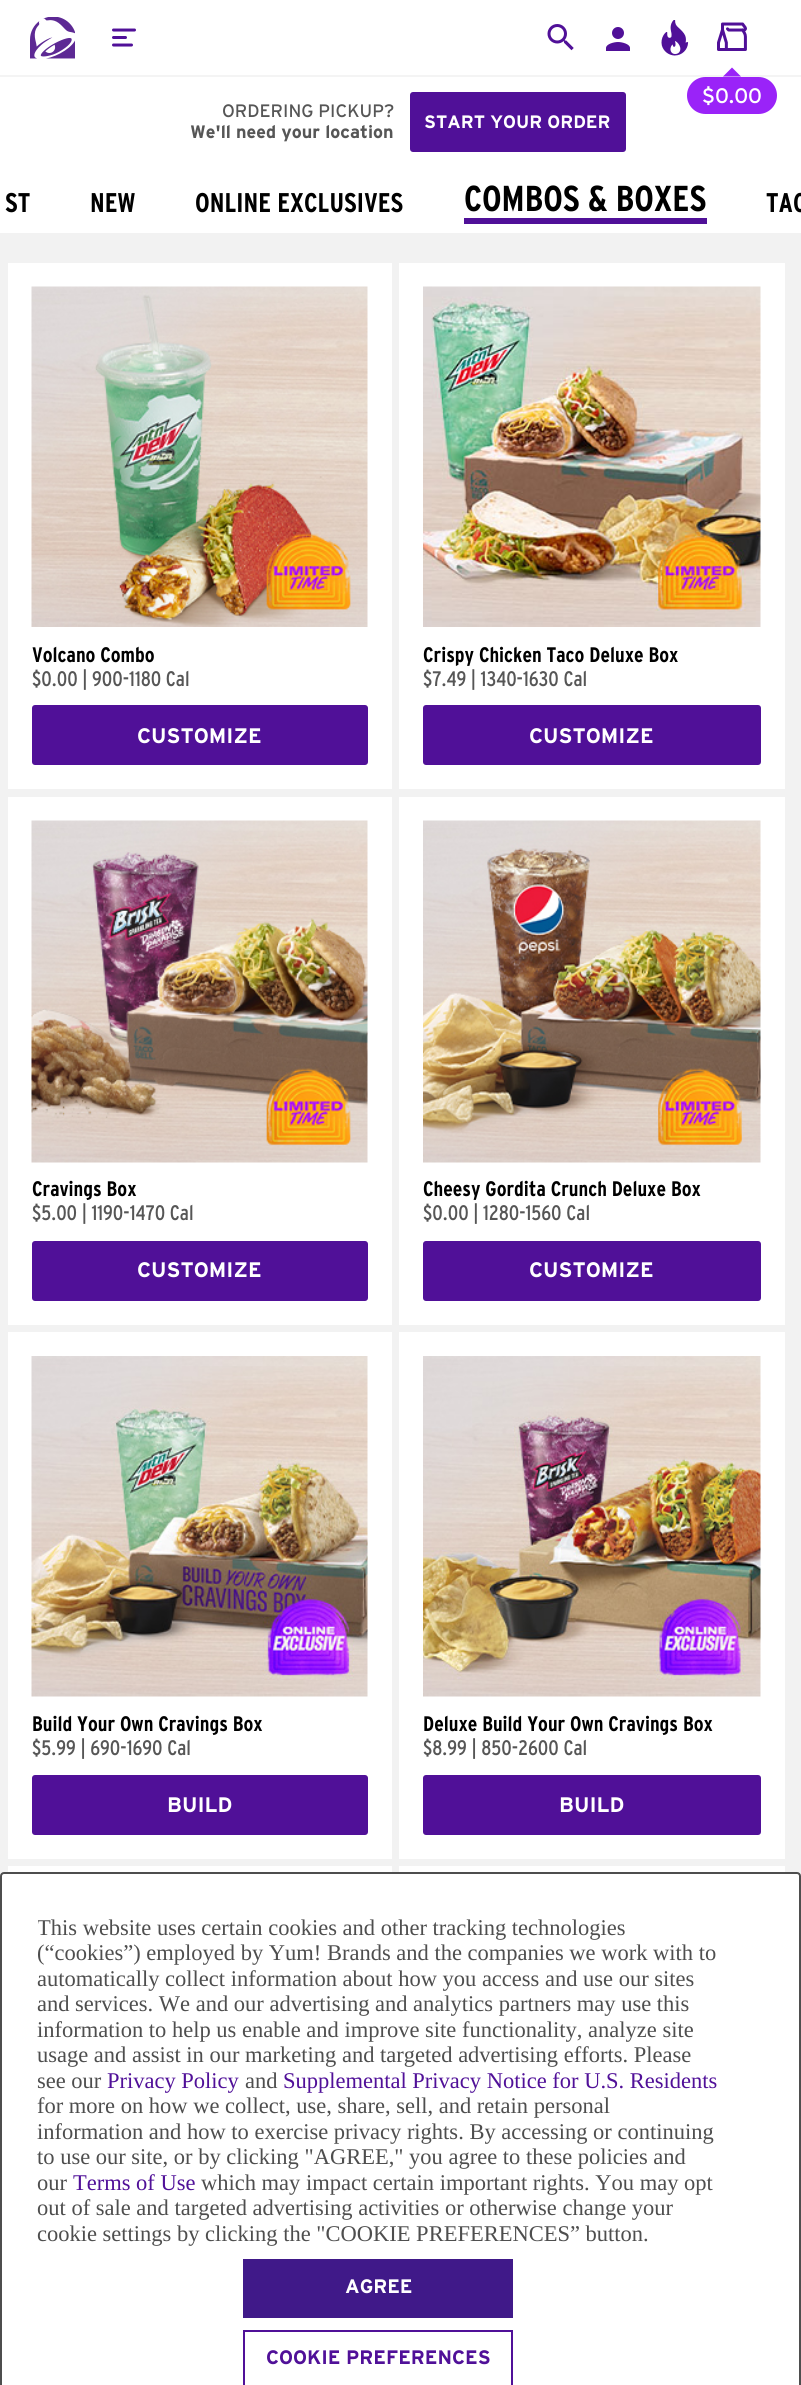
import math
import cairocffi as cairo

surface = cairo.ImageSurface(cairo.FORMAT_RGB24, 801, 2385)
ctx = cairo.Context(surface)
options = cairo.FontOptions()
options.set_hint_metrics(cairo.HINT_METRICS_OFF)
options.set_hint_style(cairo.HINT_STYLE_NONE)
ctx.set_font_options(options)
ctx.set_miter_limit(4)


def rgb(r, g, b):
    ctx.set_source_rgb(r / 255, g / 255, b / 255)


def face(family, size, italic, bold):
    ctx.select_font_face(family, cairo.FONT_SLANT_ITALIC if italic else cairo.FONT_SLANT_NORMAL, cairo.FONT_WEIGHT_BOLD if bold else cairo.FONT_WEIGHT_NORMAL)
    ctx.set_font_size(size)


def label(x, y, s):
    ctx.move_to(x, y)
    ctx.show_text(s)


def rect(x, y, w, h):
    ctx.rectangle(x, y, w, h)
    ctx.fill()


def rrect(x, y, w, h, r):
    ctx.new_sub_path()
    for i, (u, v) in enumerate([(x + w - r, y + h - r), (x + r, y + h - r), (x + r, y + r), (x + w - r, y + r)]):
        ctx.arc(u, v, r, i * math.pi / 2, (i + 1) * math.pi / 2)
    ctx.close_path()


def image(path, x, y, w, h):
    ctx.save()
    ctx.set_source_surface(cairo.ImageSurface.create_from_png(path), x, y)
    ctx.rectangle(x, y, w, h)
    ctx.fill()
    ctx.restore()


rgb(255, 255, 255)
ctx.paint()
rgb(244, 244, 244)
rect(0, 75, 801, 2)
image('image0.png', 30, 17, 45, 42)
ctx.new_path()
ctx.move_to(113.5, 30)
ctx.line_to(134.5, 30)
ctx.move_to(113.5, 37.5)
ctx.line_to(125.5, 37.5)
ctx.move_to(113.5, 45)
ctx.line_to(131.5, 45)
rgb(80, 16, 152)
ctx.set_line_width(3)
ctx.set_line_cap(cairo.LINE_CAP_ROUND)
ctx.stroke()
image('image1.png', 547, 24, 27, 27)
image('image2.png', 606, 27, 24, 24)
image('image3.png', 661, 20, 28, 36)
image('image4.png', 717, 22, 30, 29)
rgb(154, 35, 248)
rrect(687, 77, 90, 37, 18.5)
ctx.fill()
ctx.new_path()
ctx.move_to(741, 76.5)
ctx.line_to(723, 76.5)
ctx.line_to(732, 67.5)
ctx.close_path()
ctx.fill()
face('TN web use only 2', 21, 0, 0)
rgb(255, 255, 255)
label(702, 103, '$0.00')
face('TN web use only 2', 18, 0, 0)
rgb(86, 86, 86)
label(222, 117, 'ORDERING PICKUP?')
face('TN web use only 2', 18, 0, 1)
label(190, 138, 'We\'ll need your location')
rgb(80, 16, 152)
rrect(410, 92, 216, 60, 3)
ctx.fill()
rgb(255, 255, 255)
label(424, 128, 'START YOUR ORDER')
face('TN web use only', 27, 0, 1)
rgb(0, 0, 0)
label(5, 212, 'ST')
label(90, 212, 'NEW')
label(195, 212, 'ONLINE EXCLUSIVES')
rgb(80, 16, 152)
rect(464, 218, 243, 6)
face('TN web use only', 36, 0, 1)
rgb(0, 0, 0)
label(464, 211, 'COMBOS & BOXES')
face('TN web use only', 27, 0, 1)
label(766, 212, 'TAC')
rgb(242, 242, 242)
rect(0, 233, 801, 1643)
rgb(255, 255, 255)
rect(8, 263, 384, 526)
image('image5.png', 31, 286, 337, 341)
face('TN web use only', 21, 0, 1)
rgb(0, 0, 0)
label(32, 662, 'Volcano Combo')
face('TN web use only', 21, 0, 0)
rgb(86, 86, 86)
label(32, 686, '$0.00 | 900-1180 Cal')
rgb(80, 16, 152)
rrect(32, 705, 336, 60, 3)
ctx.fill()
face('TN web use only 2', 21, 0, 1)
rgb(255, 255, 255)
label(137, 743, 'CUSTOMIZE')
rect(399, 263, 386, 526)
image('image6.png', 423, 286, 338, 341)
face('TN web use only', 21, 0, 1)
rgb(0, 0, 0)
label(423, 662, 'Crispy Chicken Taco Deluxe Box')
face('TN web use only', 21, 0, 0)
rgb(86, 86, 86)
label(423, 686, '$7.49 | 1340-1630 Cal')
rgb(80, 16, 152)
rrect(423, 705, 338, 60, 3)
ctx.fill()
face('TN web use only 2', 21, 0, 1)
rgb(255, 255, 255)
label(529, 743, 'CUSTOMIZE')
rect(8, 797, 384, 528)
image('image7.png', 31, 820, 337, 343)
face('TN web use only', 21, 0, 1)
rgb(0, 0, 0)
label(32, 1196, 'Cravings Box')
face('TN web use only', 21, 0, 0)
rgb(86, 86, 86)
label(32, 1220, '$5.00 | 1190-1470 Cal')
rgb(80, 16, 152)
rrect(32, 1241, 336, 60, 3)
ctx.fill()
face('TN web use only 2', 21, 0, 1)
rgb(255, 255, 255)
label(137, 1277, 'CUSTOMIZE')
rect(399, 797, 386, 528)
image('image8.png', 423, 820, 338, 343)
face('TN web use only', 21, 0, 1)
rgb(0, 0, 0)
label(423, 1196, 'Cheesy Gordita Crunch Deluxe Box')
face('TN web use only', 21, 0, 0)
rgb(86, 86, 86)
label(423, 1220, '$0.00 | 1280-1560 Cal')
rgb(80, 16, 152)
rrect(423, 1241, 338, 60, 3)
ctx.fill()
face('TN web use only 2', 21, 0, 1)
rgb(255, 255, 255)
label(529, 1277, 'CUSTOMIZE')
rect(8, 1332, 384, 527)
image('image9.png', 31, 1356, 337, 341)
face('TN web use only', 21, 0, 1)
rgb(0, 0, 0)
label(32, 1731, 'Build Your Own Cravings Box')
face('TN web use only', 21, 0, 0)
rgb(86, 86, 86)
label(32, 1755, '$5.99 | 690-1690 Cal')
rgb(80, 16, 152)
rrect(32, 1775, 336, 60, 3)
ctx.fill()
face('TN web use only 2', 21, 0, 1)
rgb(255, 255, 255)
label(167, 1812, 'BUILD')
rect(399, 1332, 386, 527)
image('image10.png', 423, 1356, 338, 341)
face('TN web use only', 21, 0, 1)
rgb(0, 0, 0)
label(423, 1731, 'Deluxe Build Your Own Cravings Box')
face('TN web use only', 21, 0, 0)
rgb(86, 86, 86)
label(423, 1755, '$8.99 | 850-2600 Cal')
rgb(80, 16, 152)
rrect(423, 1775, 338, 60, 3)
ctx.fill()
face('TN web use only 2', 21, 0, 1)
rgb(255, 255, 255)
label(559, 1812, 'BUILD')
rect(8, 1866, 384, 6)
rect(399, 1866, 386, 6)
rrect(1, 1873, 799, 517, 3)
ctx.fill_preserve()
rgb(78, 78, 78)
ctx.set_line_width(2)
ctx.set_line_cap(cairo.LINE_CAP_BUTT)
ctx.stroke()
ctx.save()
ctx.rectangle(38, 1889, 682, 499)
ctx.clip()
face('Liberation Serif', 22.5, 0, 0)
label(37, 1935, 'This website uses certain cookies and other tracking technologies')
ctx.restore()
face('Liberation Serif', 22.5, 0, 0)
label(37, 1960, '(“cookies”) employed by Yum! Brands and the companies we work with to')
label(37, 1986, 'automatically collect information about how you access and use our sites')
label(37, 2011, 'and services. We and our advertising and analytics partners may use this')
label(37, 2037, 'information to help us enable and improve site functionality, analyze site')
label(37, 2062, 'usage and assist in our marketing and targeted advertising efforts. Please')
label(37, 2088, 'see our')
rgb(80, 16, 152)
label(107, 2088, 'Privacy Policy')
rgb(78, 78, 78)
label(245, 2088, 'and')
rgb(80, 16, 152)
label(283, 2088, 'Supplemental Privacy Notice for U.S. Residents')
rgb(78, 78, 78)
label(37, 2113, 'for more on how we collect, use, share, sell, and retain personal')
label(37, 2139, 'information and how to exercise privacy rights. By accessing or continuing')
label(37, 2164, 'to use our site, or by clicking "AGREE," you agree to these policies and')
label(37, 2190, 'our')
rgb(80, 16, 152)
label(73, 2190, 'Terms of Use')
rgb(78, 78, 78)
label(201, 2190, 'which may impact certain important rights. You may opt')
label(37, 2215, 'out of sale and targeted advertising activities or otherwise change your')
label(37, 2241, 'cookie settings by clicking the "COOKIE PREFERENCES” button.')
rgb(64, 25, 137)
rect(243, 2259, 270, 59)
face('TN web use only 2', 19.5, 0, 1)
rgb(255, 255, 255)
label(345, 2293, 'AGREE')
ctx.rectangle(244, 2331, 268, 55)
rgb(80, 16, 152)
ctx.stroke()
label(266, 2364, 'COOKIE PREFERENCES')
surface.write_to_png('render.png')
